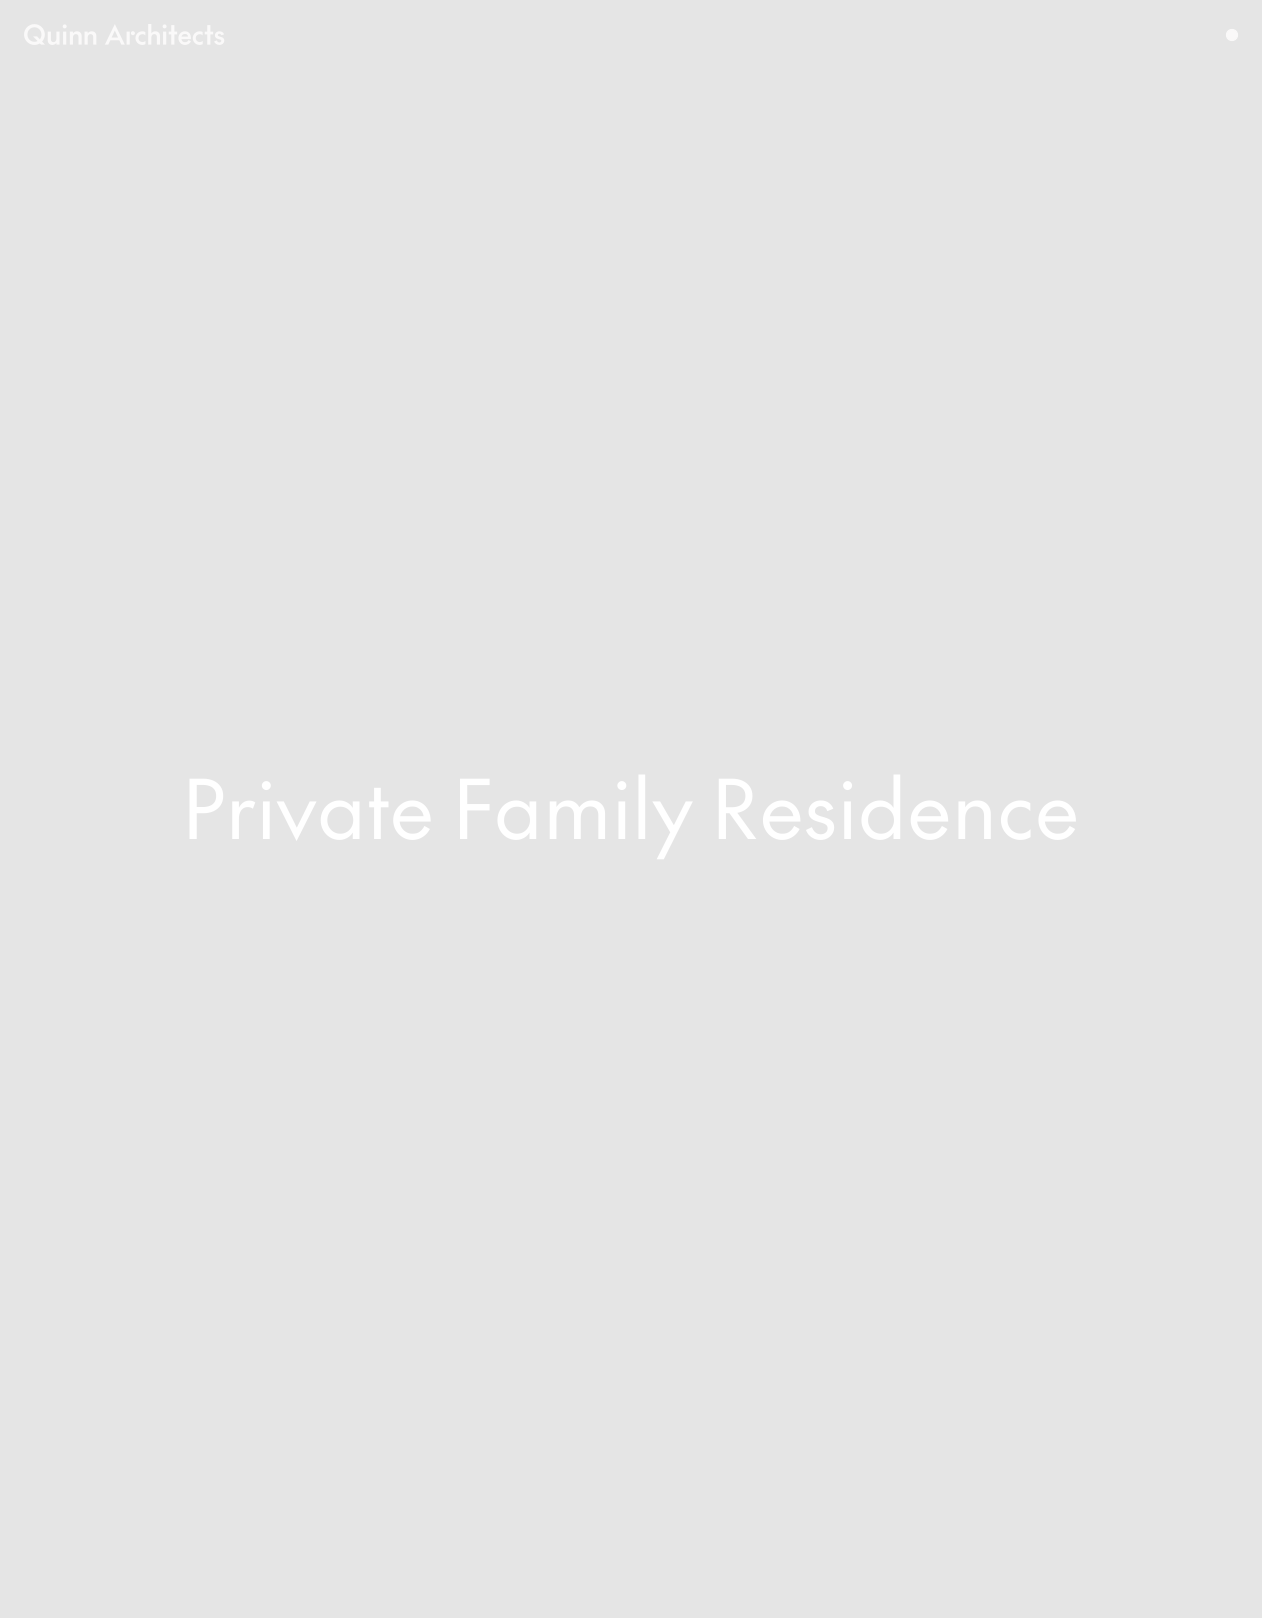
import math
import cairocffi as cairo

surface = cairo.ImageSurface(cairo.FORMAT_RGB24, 1262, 1618)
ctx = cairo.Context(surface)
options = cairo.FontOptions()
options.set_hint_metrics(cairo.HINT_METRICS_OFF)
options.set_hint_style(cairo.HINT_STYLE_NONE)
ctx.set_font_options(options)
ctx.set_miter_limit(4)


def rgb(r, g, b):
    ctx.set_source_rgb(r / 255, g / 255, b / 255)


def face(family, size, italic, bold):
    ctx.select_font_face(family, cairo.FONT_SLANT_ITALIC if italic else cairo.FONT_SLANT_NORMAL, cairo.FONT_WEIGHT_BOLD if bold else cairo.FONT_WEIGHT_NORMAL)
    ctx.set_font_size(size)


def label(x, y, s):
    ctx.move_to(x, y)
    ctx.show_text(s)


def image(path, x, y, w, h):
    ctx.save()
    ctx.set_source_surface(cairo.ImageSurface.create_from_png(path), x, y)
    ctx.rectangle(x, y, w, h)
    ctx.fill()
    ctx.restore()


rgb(229, 229, 229)
ctx.paint()
image('image0.png', 24, 24, 201, 21)
rgb(250, 249, 249)
ctx.arc(1232, 35, 5.5, 0, 2 * math.pi)
ctx.fill_preserve()
ctx.set_line_width(1.2)
ctx.stroke()
face('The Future', 80, 0, 0)
rgb(255, 255, 255)
label(182, 839, 'Private Family Residence')
surface.write_to_png('render.png')
